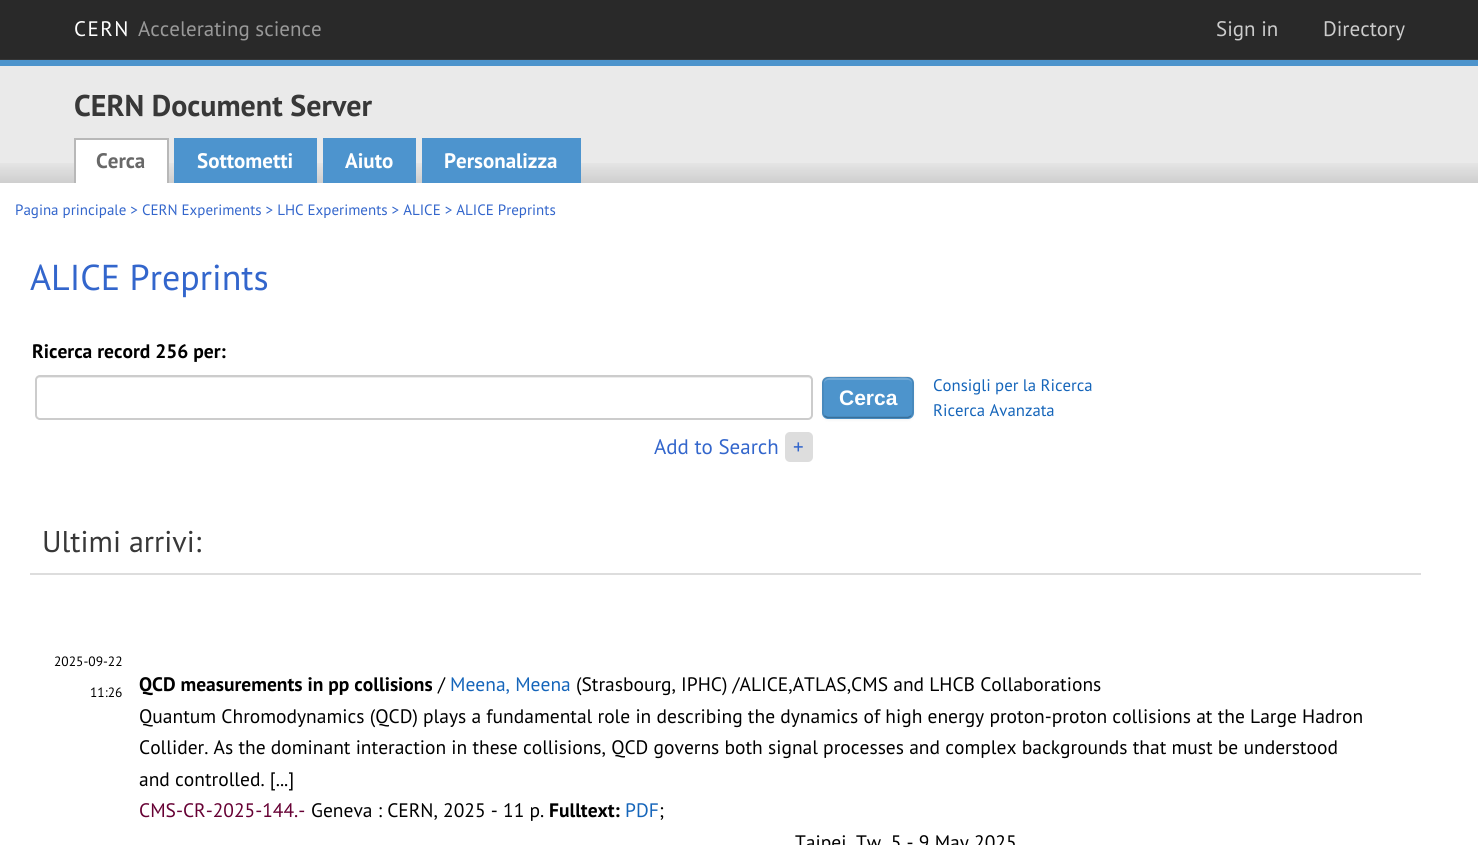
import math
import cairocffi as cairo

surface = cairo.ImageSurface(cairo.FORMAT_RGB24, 1478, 845)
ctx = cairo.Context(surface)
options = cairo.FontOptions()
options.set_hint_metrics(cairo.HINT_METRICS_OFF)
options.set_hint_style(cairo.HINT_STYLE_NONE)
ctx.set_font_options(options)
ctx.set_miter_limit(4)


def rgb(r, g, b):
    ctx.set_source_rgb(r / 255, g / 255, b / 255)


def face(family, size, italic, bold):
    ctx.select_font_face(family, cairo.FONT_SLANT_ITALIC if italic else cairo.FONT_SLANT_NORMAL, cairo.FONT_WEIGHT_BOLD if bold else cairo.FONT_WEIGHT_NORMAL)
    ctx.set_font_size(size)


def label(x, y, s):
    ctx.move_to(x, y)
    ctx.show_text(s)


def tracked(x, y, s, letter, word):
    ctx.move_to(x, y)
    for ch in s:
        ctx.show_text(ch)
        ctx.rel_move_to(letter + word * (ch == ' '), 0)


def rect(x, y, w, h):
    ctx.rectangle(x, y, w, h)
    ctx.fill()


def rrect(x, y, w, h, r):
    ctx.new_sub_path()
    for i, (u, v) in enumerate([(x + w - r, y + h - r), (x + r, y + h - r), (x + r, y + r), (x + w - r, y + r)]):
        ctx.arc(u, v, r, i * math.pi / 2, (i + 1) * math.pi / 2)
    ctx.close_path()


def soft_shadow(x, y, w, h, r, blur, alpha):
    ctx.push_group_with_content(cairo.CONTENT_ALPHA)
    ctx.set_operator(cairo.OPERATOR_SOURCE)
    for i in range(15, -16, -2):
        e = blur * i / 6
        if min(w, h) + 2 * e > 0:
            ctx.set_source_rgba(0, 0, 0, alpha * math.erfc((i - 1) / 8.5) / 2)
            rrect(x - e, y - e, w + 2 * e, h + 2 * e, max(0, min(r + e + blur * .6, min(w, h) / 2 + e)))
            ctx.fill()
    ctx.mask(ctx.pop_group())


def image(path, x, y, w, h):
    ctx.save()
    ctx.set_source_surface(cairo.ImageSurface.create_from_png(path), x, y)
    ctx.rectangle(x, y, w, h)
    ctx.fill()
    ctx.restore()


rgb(255, 255, 255)
ctx.paint()
rgb(41, 41, 41)
rect(0, 0, 1478, 59)
rgb(53, 53, 53)
rect(0, 59, 1478, 1)
face('PT Sans', 21, 0, 0)
rgb(255, 255, 255)
tracked(74, 36, 'CERN', 1.5, 0)
rgb(153, 153, 153)
label(138, 36, 'Accelerating science')
rgb(204, 204, 204)
label(1216, 36, 'Sign in')
label(1323, 36, 'Directory')
rgb(234, 234, 234)
rect(0, 66, 1478, 117)
image('image0.png', 0, 163, 1478, 20)
rgb(77, 148, 204)
rect(0, 60, 1478, 6)
face('PT Sans', 30, 0, 1)
rgb(56, 56, 56)
label(74, 116, 'CERN Document Server')
rgb(255, 255, 255)
rect(76, 140, 91, 43)
rgb(184, 184, 184)
rect(74, 138, 94, 2)
rect(167, 138, 2, 45)
rect(74, 138, 2, 45)
face('PT Sans', 21, 0, 1)
rgb(104, 104, 104)
label(96, 168, 'Cerca')
rgb(77, 148, 206)
rect(174, 138, 143, 45)
rgb(255, 255, 255)
label(197, 168, 'Sottometti')
rgb(77, 148, 206)
rect(323, 138, 93, 45)
rgb(255, 255, 255)
label(345, 168, 'Aiuto')
rgb(77, 148, 206)
rect(422, 138, 159, 45)
rgb(255, 255, 255)
label(444, 168, 'Personalizza')
face('PT Sans', 15, 0, 0)
rgb(51, 102, 204)
label(15, 215, 'Pagina principale > CERN Experiments > LHC Experiments > ALICE > ALICE Preprints')
face('PT Sans', 36, 0, 0)
label(30, 290, 'ALICE Preprints')
face('PT Sans', 19.5, 0, 1)
rgb(0, 0, 0)
label(32, 358, 'Ricerca record 256 per:')
rgb(236, 236, 236)
ctx.new_path()
ctx.move_to(39, 378)
ctx.line_to(808, 378)
ctx.curve_to(810, 378, 812, 379, 812, 381)
ctx.curve_to(812, 379, 811, 377, 809, 377)
ctx.line_to(39, 377)
ctx.curve_to(37, 377, 36, 379, 36, 381)
ctx.curve_to(36, 379, 37, 378, 39, 378)
ctx.close_path()
ctx.fill()
rrect(36, 376, 776, 43, 4)
rgb(204, 204, 204)
ctx.stroke()
rgb(0, 0, 0)
soft_shadow(822, 378, 92, 42, 6, 1.5, 0.05)
rgb(77, 148, 204)
rrect(822, 377, 92, 42, 6)
ctx.fill()
rgb(113, 169, 214)
ctx.new_path()
ctx.move_to(828, 380)
ctx.line_to(908, 380)
ctx.curve_to(910, 380, 912, 382, 912, 384)
ctx.curve_to(912, 375, 900, 378, 894, 378)
ctx.line_to(842, 378)
ctx.curve_to(836, 378, 824, 375, 824, 384)
ctx.curve_to(824, 382, 826, 380, 828, 380)
ctx.close_path()
ctx.fill()
ctx.new_path()
ctx.move_to(911, 416)
ctx.line_to(908, 417.5)
ctx.line_to(827.5, 417.5)
ctx.line_to(824.5, 416)
rgb(58, 111, 153)
ctx.set_line_width(1.5)
ctx.stroke()
ctx.new_path()
ctx.move_to(824.5, 416)
ctx.curve_to(822, 414, 823, 410.5, 823, 407.5)
ctx.line_to(823, 397.5)
ctx.curve_to(823, 375.5, 819.5, 377, 841, 377)
ctx.line_to(894, 377)
ctx.curve_to(916, 377, 913, 375.5, 913, 397.5)
ctx.line_to(913, 407.5)
ctx.curve_to(913, 410.5, 913.5, 414, 911, 416)
ctx.set_source_rgba(0, 0, 0, 0.1)
ctx.stroke()
face('Liberation Sans', 21, 0, 1)
rgb(255, 255, 255)
label(839, 405, 'Cerca')
face('PT Sans', 16.75, 0, 0)
rgb(21, 101, 186)
label(933, 391, 'Consigli per la Ricerca')
label(933, 416, 'Ricerca Avanzata')
face('PT Sans', 21, 0, 0)
rgb(51, 102, 204)
label(654, 454, 'Add to Search')
rgb(221, 221, 221)
rrect(785, 432, 28, 30, 5)
ctx.fill()
rgb(51, 102, 204)
label(793, 454, '+')
rgb(221, 221, 221)
rect(30, 573, 1391, 2)
face('PT Sans', 30, 0, 0)
rgb(56, 56, 56)
label(42, 552, 'Ultimi arrivi:')
face('PT Sans', 13.5, 0, 0)
rgb(0, 0, 0)
label(54, 666, '2025-09-22')
label(90, 697, '11:26')
face('PT Sans', 19.5, 0, 1)
label(139, 691, 'QCD measurements in pp collisions')
face('PT Sans', 19.5, 0, 0)
label(438, 691, '/')
rgb(21, 101, 186)
label(450, 691, 'Meena, Meena')
rgb(0, 0, 0)
label(576, 691, '(Strasbourg, IPHC) /ALICE,ATLAS,CMS and LHCB Collaborations')
label(139, 723, 'Quantum Chromodynamics (QCD) plays a fundamental role in describing the dynamics of high energy proton-proton collisions at the Large Hadron')
label(139, 754, 'Collider. As the dominant interaction in these collisions, QCD governs both signal processes and complex backgrounds that must be understood')
label(139, 786, 'and controlled. [...]')
rgb(102, 0, 51)
label(139, 817, 'CMS-CR-2025-144.-')
rgb(0, 0, 0)
label(311, 817, 'Geneva : CERN, 2025 - 11 p.')
face('PT Sans', 19.5, 0, 1)
label(549, 817, 'Fulltext:')
face('PT Sans', 19.5, 0, 0)
rgb(21, 101, 186)
label(625, 817, 'PDF')
rgb(0, 0, 0)
label(659, 817, ';')
label(795, 849, 'Taipei, Tw, 5 - 9 May 2025')
surface.write_to_png('render.png')
